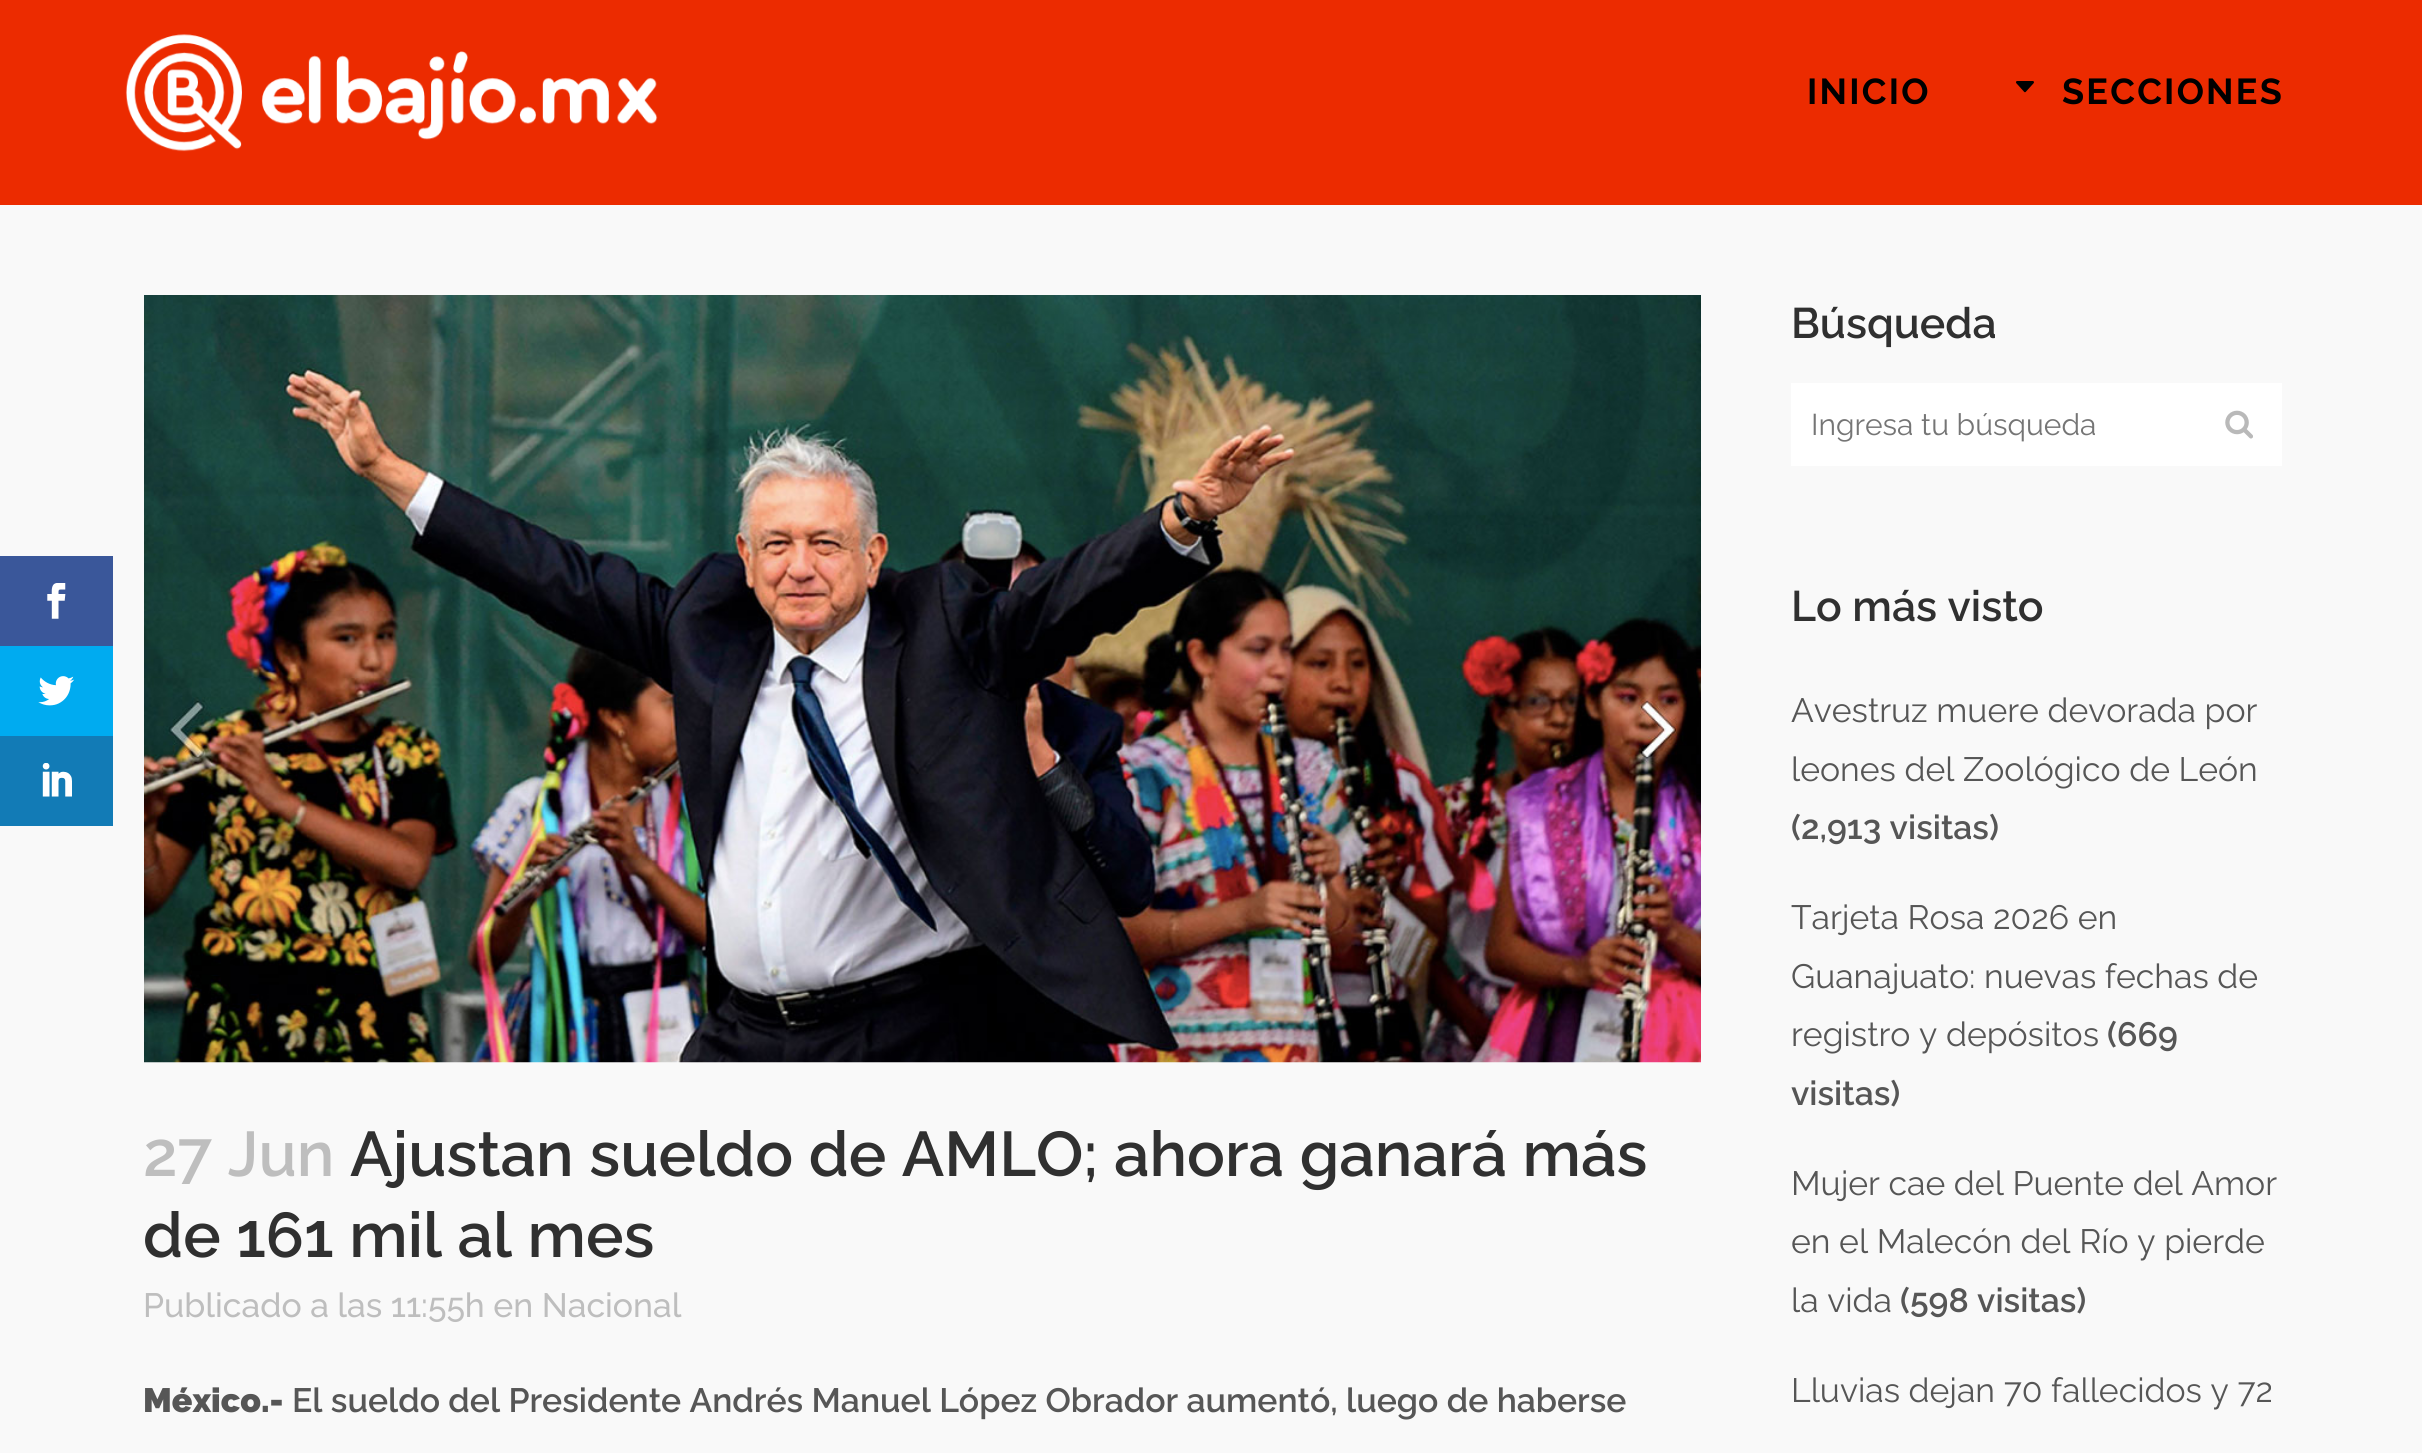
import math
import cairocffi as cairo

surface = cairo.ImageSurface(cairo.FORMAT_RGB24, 2422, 1453)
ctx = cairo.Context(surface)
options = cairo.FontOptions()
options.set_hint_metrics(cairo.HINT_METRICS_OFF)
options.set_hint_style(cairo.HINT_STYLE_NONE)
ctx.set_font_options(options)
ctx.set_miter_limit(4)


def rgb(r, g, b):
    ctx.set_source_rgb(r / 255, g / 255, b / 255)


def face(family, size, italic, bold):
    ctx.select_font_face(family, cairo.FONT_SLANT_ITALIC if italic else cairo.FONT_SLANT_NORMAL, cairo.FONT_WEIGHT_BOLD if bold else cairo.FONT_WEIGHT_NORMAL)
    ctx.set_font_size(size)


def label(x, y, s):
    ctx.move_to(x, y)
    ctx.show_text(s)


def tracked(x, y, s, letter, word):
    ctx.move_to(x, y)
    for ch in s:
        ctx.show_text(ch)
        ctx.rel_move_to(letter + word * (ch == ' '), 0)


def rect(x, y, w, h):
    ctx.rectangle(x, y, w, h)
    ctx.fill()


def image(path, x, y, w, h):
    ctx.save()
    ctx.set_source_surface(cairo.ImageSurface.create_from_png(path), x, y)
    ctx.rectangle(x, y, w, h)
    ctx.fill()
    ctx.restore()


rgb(249, 249, 249)
ctx.paint()
rgb(58, 87, 154)
rect(0, 556, 113, 90)
image('image0.png', 47, 583, 19, 36)
rgb(0, 171, 240)
rect(0, 646, 113, 90)
image('image1.png', 38, 676, 37, 30)
rgb(18, 123, 182)
rect(0, 736, 113, 90)
image('image2.png', 42, 763, 30, 34)
rgb(236, 43, 0)
rect(0, 0, 2422, 205)
image('image3.png', 125, 34, 533, 118)
face('Raleway', 36, 0, 1)
rgb(0, 0, 0)
tracked(1807, 104, 'INICIO', 2.25, 0)
image('image4.png', 2016, 81, 18, 12)
tracked(2062, 104, 'SECCIONES', 2.25, 0)
image('image5.png', 144, 295, 1557, 768)
face('Raleway SemiBold', 63, 0, 0)
rgb(190, 190, 190)
label(143, 1176, '27 Jun')
rgb(48, 48, 48)
label(350, 1176, 'Ajustan sueldo de AMLO; ahora ganará más')
label(143, 1257, 'de 161 mil al mes')
face('Raleway Medium', 33.75, 0, 0)
rgb(190, 190, 190)
label(143, 1317, 'Publicado a las 11:55h en Nacional')
face('Raleway Black', 33.75, 0, 0)
rgb(86, 86, 86)
label(143, 1412, 'México.-')
face('Raleway SemiBold', 33.75, 0, 0)
label(292, 1412, 'El sueldo del Presidente Andrés Manuel López Obrador aumentó, luego de haberse')
face('Raleway SemiBold', 42.75, 0, 0)
rgb(48, 48, 48)
label(1791, 338, 'Búsqueda')
rgb(255, 255, 255)
rect(1791, 383, 491, 83)
face('Raleway', 30, 0, 0)
rgb(117, 117, 117)
label(1811, 435, 'Ingresa tu búsqueda')
image('image6.png', 2225, 410, 28, 29)
face('Raleway SemiBold', 42.75, 0, 0)
rgb(48, 48, 48)
label(1791, 621, 'Lo más visto')
face('Raleway', 33.75, 0, 0)
rgb(86, 86, 86)
label(1791, 722, 'Avestruz muere devorada por')
label(1791, 781, 'leones del Zoológico de León')
face('Raleway SemiBold', 33.75, 0, 0)
label(1791, 839, '(2,913 visitas)')
face('Raleway', 33.75, 0, 0)
label(1791, 929, 'Tarjeta Rosa 2026 en')
label(1791, 988, 'Guanajuato: nuevas fechas de')
label(1791, 1046, 'registro y depósitos')
face('Raleway SemiBold', 33.75, 0, 0)
label(2107, 1046, '(669')
label(1791, 1105, 'visitas)')
face('Raleway', 33.75, 0, 0)
label(1791, 1195, 'Mujer cae del Puente del Amor')
label(1791, 1253, 'en el Malecón del Río y pierde')
label(1791, 1312, 'la vida')
face('Raleway SemiBold', 33.75, 0, 0)
label(1900, 1312, '(598 visitas)')
face('Raleway', 33.75, 0, 0)
label(1791, 1402, 'Lluvias dejan 70 fallecidos y 72')
surface.write_to_png('render.png')
